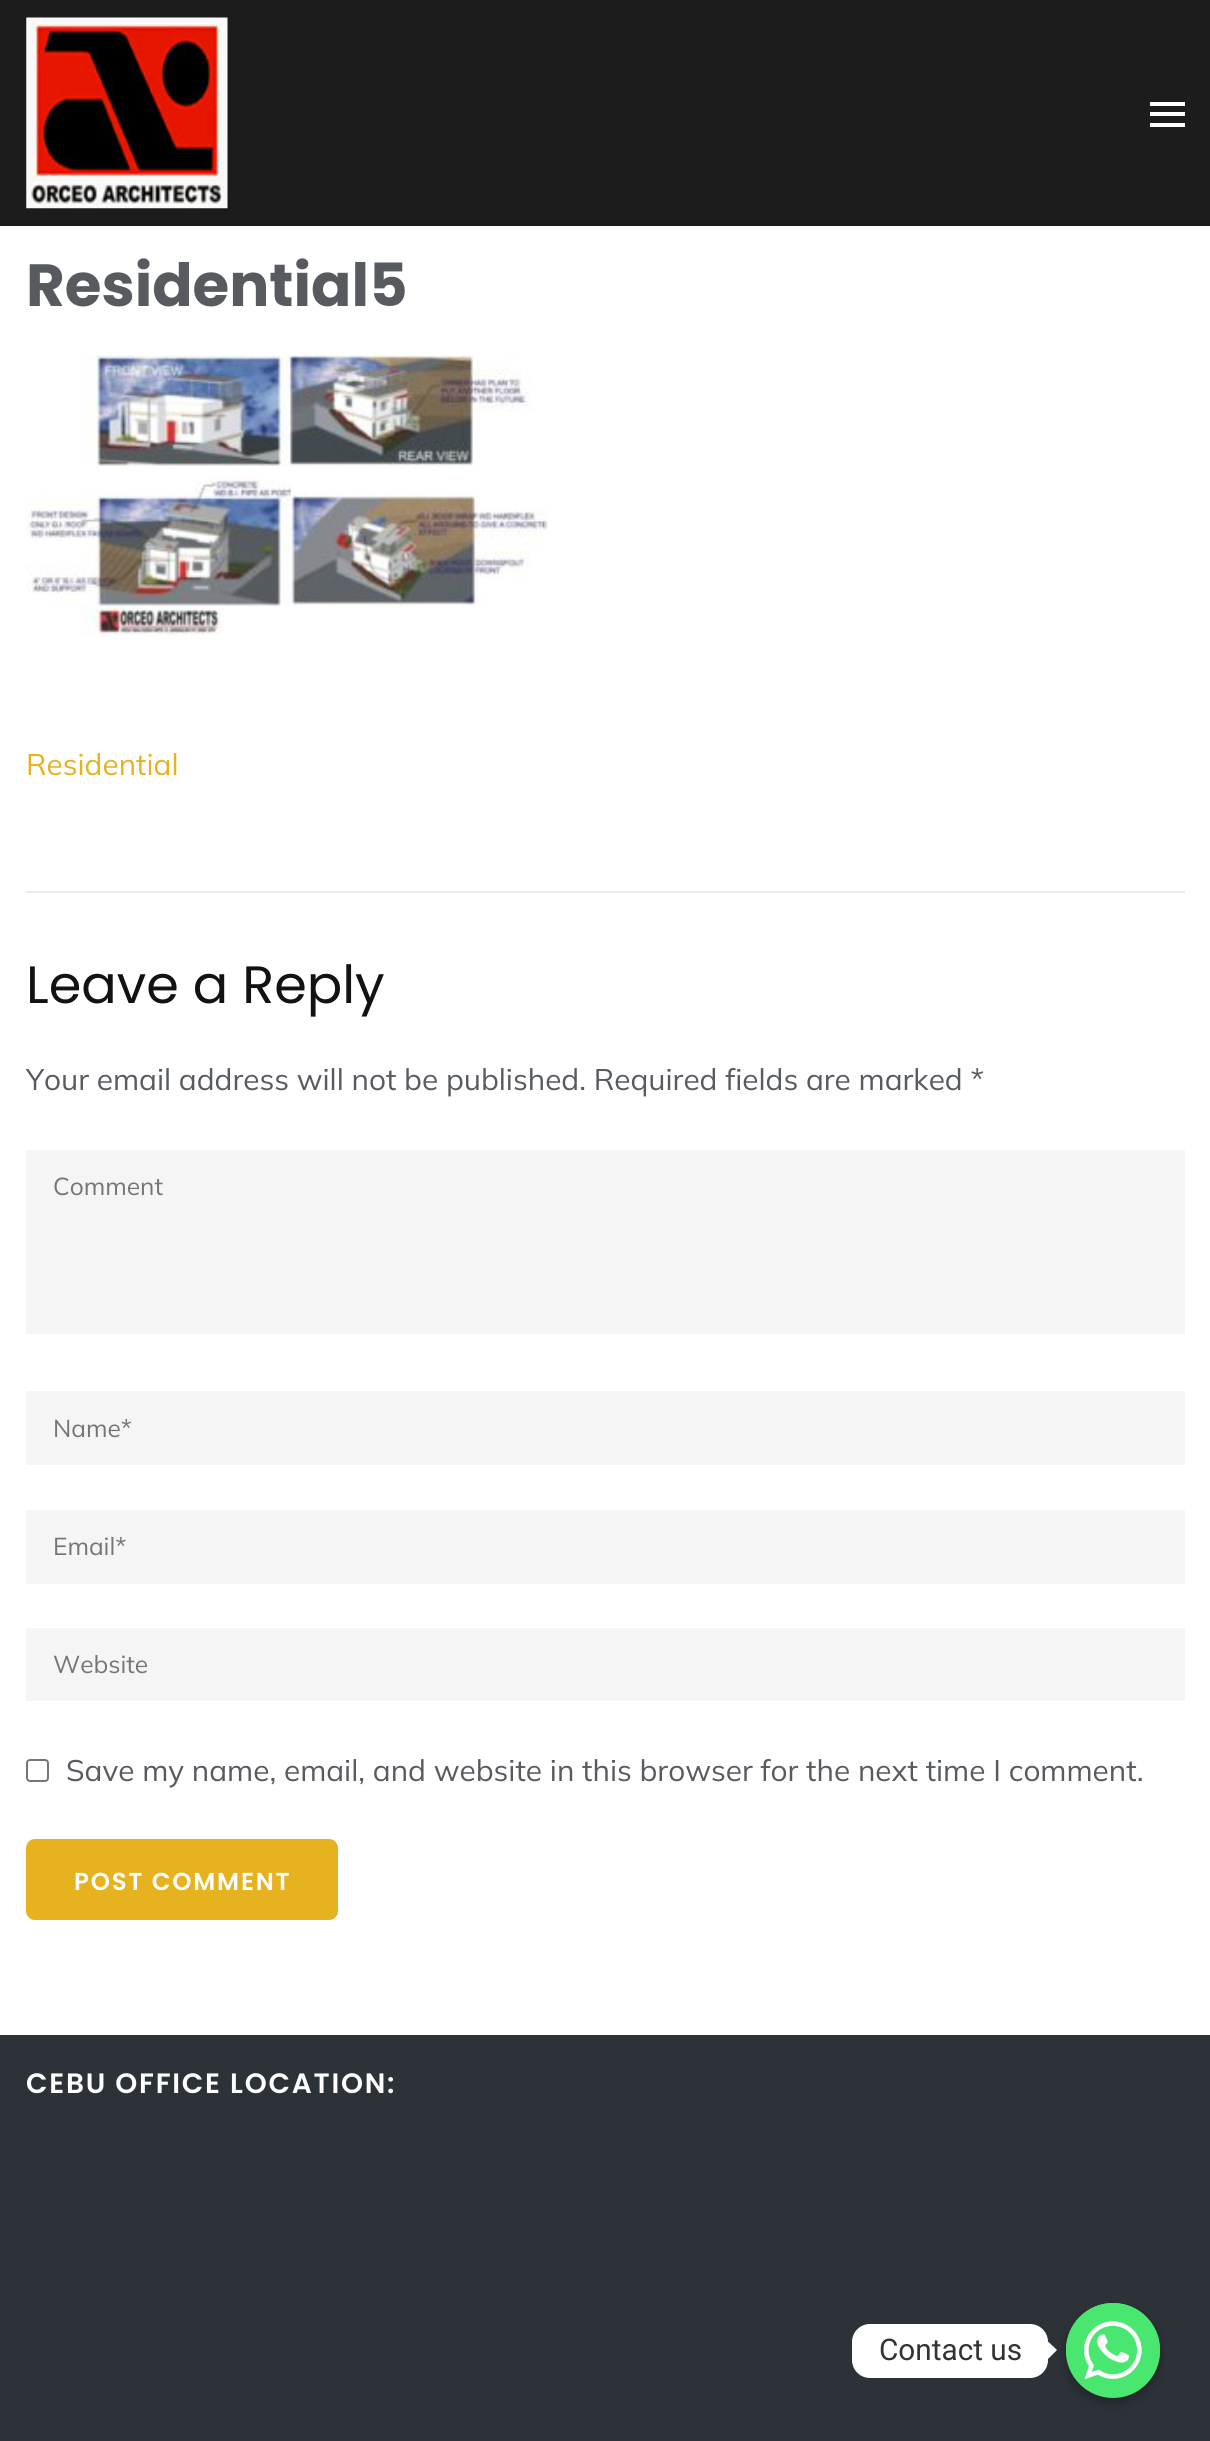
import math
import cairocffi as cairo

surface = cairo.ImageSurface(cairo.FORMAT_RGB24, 1210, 2441)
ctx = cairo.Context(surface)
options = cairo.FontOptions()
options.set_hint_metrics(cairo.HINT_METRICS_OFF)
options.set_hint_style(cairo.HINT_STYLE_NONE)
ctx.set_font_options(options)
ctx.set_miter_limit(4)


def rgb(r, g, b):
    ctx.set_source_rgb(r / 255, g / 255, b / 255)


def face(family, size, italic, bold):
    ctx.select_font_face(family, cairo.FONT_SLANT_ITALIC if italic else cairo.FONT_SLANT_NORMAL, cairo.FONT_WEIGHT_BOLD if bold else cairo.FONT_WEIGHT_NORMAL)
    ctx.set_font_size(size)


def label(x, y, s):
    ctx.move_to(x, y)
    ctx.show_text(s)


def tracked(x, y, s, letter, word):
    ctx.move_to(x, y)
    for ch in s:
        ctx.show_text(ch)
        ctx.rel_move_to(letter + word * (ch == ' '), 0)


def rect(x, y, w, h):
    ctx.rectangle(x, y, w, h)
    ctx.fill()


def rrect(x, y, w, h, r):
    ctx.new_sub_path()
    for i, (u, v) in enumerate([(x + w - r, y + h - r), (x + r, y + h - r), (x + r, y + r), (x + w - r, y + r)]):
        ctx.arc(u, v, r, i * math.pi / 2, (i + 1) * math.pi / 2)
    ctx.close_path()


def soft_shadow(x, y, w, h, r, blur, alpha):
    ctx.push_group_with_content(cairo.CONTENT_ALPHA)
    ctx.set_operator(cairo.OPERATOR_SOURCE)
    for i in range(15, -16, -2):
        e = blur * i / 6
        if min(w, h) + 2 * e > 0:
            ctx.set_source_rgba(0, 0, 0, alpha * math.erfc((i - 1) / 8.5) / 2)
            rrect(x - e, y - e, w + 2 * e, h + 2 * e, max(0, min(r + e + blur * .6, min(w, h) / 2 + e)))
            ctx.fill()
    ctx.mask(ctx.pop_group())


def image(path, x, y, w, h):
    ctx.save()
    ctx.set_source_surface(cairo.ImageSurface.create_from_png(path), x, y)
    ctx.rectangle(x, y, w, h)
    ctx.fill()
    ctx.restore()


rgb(255, 255, 255)
ctx.paint()
rgb(28, 28, 28)
rect(0, 0, 1210, 226)
image('image0.png', 26, 17, 202, 192)
rgb(255, 255, 255)
rect(1150, 102, 35, 4)
rect(1150, 112, 35, 4)
rect(1150, 123, 35, 4)
face('Poppins', 59.5, 0, 1)
rgb(87, 91, 96)
label(26, 306, 'Residential5')
image('image1.png', 26, 355, 522, 281)
face('Mulish', 29.75, 0, 0)
rgb(230, 178, 32)
label(26, 775, 'Residential')
rgb(235, 235, 235)
rect(26, 891, 1159, 2)
face('Poppins', 52.5, 0, 0)
rgb(18, 18, 18)
label(26, 1003, 'Leave a Reply')
face('Mulish', 29.75, 0, 0)
rgb(87, 91, 96)
label(26, 1090, 'Your email address will not be published. Required fields are marked *')
rgb(245, 245, 245)
rect(26, 1150, 1159, 184)
face('Mulish', 24.5, 0, 0)
rgb(117, 117, 117)
label(53, 1195, 'Comment')
rgb(245, 245, 245)
rect(26, 1391, 1159, 74)
rgb(117, 117, 117)
label(53, 1437, 'Name*')
rgb(245, 245, 245)
rect(26, 1510, 1159, 74)
rgb(117, 117, 117)
label(53, 1555, 'Email*')
rgb(245, 245, 245)
rect(26, 1628, 1159, 73)
rgb(117, 117, 117)
label(53, 1673, 'Website')
rrect(27, 1760, 21, 21, 3)
rgb(118, 118, 118)
ctx.stroke()
face('Mulish', 29.75, 0, 0)
rgb(87, 91, 96)
label(66, 1781, 'Save my name, email, and website in this browser for the next time I comment.')
rgb(230, 178, 32)
rrect(28, 1841, 308, 77, 7)
ctx.fill_preserve()
ctx.set_line_width(4)
ctx.stroke()
face('Poppins SemiBold', 24.5, 0, 0)
rgb(255, 255, 255)
tracked(74, 1890, 'POST COMMENT', 1.75, 0)
rgb(45, 50, 56)
rect(0, 2035, 1210, 406)
face('Poppins SemiBold', 28, 0, 0)
rgb(255, 255, 255)
tracked(26, 2093, 'CEBU OFFICE LOCATION:', 1.75, 0)
rrect(852, 2324, 196, 54, 18)
ctx.fill()
face('Roboto', 29.75, 0, 0)
rgb(51, 51, 51)
label(879, 2360, 'Contact us')
rgb(0, 0, 0)
soft_shadow(1066, 2308, 94, 95, 47, 5, 0.25)
rgb(73, 230, 112)
rrect(1066, 2303, 94, 95, 47)
ctx.fill()
image('image2.png', 1066, 2303, 94, 77)
rgb(255, 255, 255)
ctx.new_path()
ctx.move_to(1048, 2359)
ctx.line_to(1048, 2341.5)
ctx.line_to(1057, 2350)
ctx.close_path()
ctx.fill()
surface.write_to_png('render.png')
